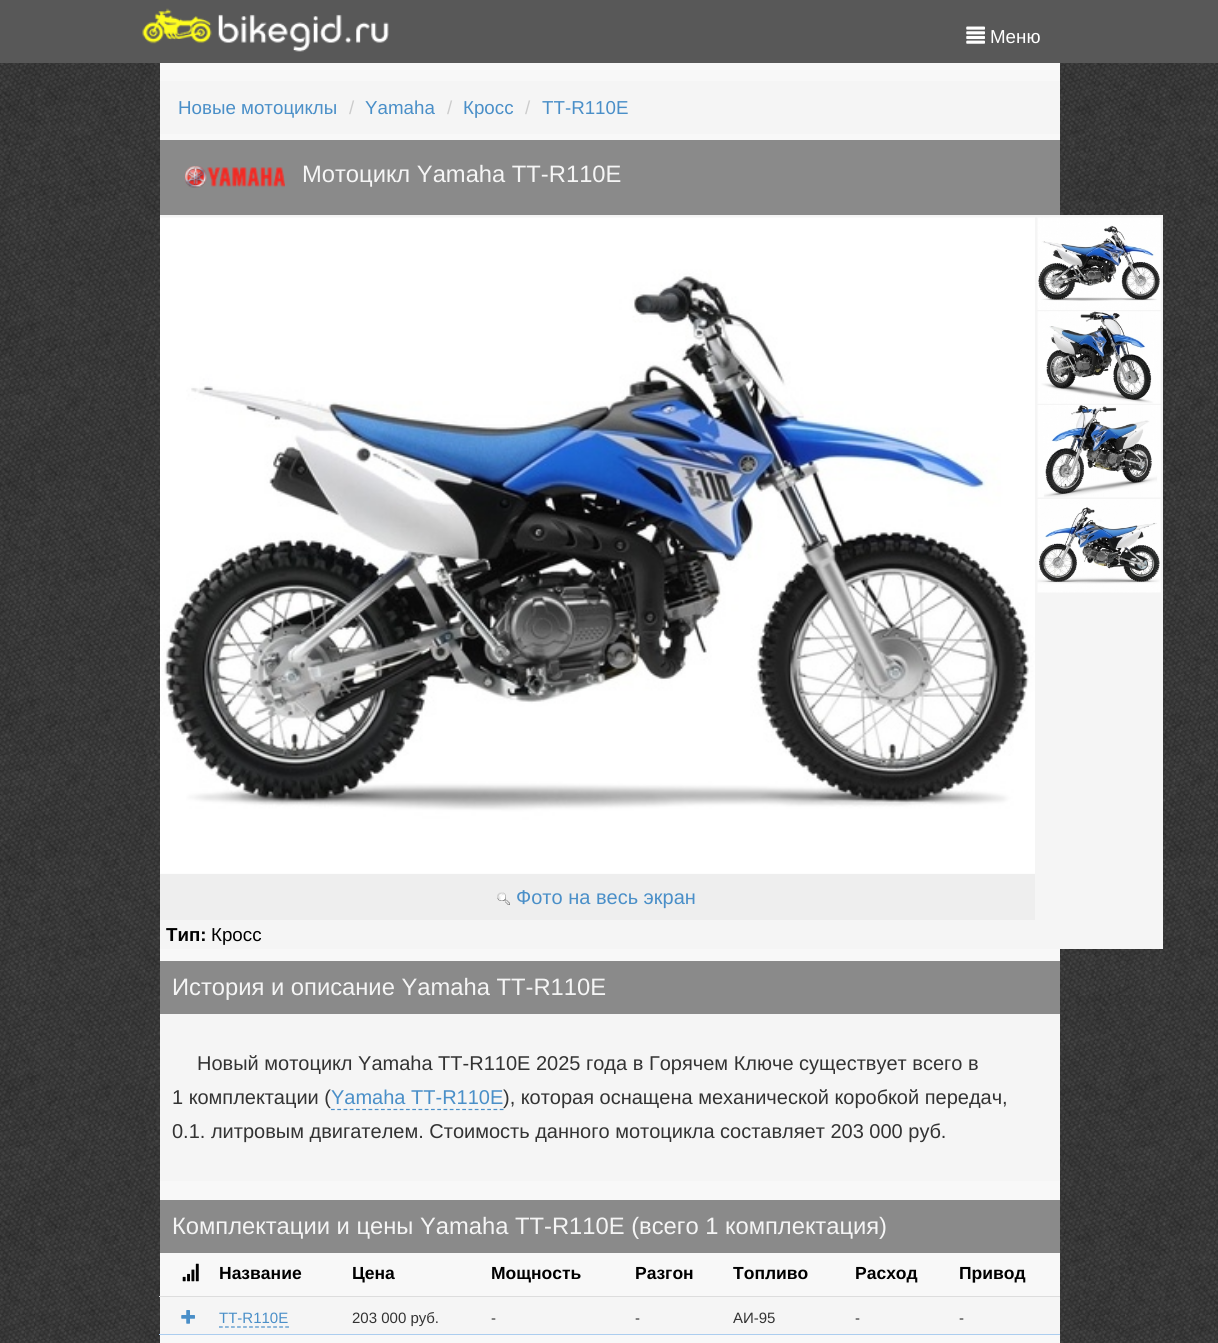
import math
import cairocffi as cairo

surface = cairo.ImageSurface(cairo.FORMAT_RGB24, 1218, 1343)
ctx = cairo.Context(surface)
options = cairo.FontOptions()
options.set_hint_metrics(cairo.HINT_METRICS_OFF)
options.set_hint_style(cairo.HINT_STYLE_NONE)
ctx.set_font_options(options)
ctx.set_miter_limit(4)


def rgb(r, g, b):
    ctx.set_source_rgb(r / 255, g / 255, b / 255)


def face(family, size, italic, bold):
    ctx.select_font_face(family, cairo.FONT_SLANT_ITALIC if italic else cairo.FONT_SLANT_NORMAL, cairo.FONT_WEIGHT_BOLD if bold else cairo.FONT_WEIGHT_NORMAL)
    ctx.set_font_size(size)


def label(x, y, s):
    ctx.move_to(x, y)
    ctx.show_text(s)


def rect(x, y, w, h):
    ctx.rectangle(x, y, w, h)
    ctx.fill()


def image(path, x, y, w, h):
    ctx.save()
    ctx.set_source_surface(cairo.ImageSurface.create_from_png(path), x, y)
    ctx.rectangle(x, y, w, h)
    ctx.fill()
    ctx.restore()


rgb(255, 255, 255)
ctx.paint()
image('image0.png', 0, 63, 1218, 1280)
rgb(88, 88, 88)
rect(0, 0, 1218, 63)
image('image1.png', 142, 8, 247, 44)
image('image2.png', 966, 26, 19, 18)
face('Liberation Sans', 18.75, 0, 0)
rgb(255, 255, 255)
label(990, 43, 'Меню')
rgb(248, 248, 248)
rect(160, 63, 900, 1280)
rgb(245, 245, 245)
rect(160, 81, 900, 53)
rgb(74, 143, 200)
label(178, 114, 'Новые мотоциклы')
rgb(204, 204, 204)
label(349, 114, '/')
rgb(74, 143, 200)
label(365, 114, 'Yamaha')
rgb(204, 204, 204)
label(447, 114, '/')
rgb(74, 143, 200)
label(463, 114, 'Кросс')
rgb(204, 204, 204)
label(525, 114, '/')
rgb(74, 143, 200)
label(542, 114, 'TT-R110E')
rgb(138, 138, 138)
rect(160, 140, 900, 75)
image('image3.png', 185, 166, 100, 22)
face('Liberation Sans', 23.75, 0, 0)
rgb(245, 245, 245)
label(302, 182, 'Мотоцикл Yamaha TT-R110E')
rect(160, 215, 1003, 734)
image('image4.png', 1037, 217, 124, 93)
image('image5.png', 1037, 311, 124, 93)
image('image6.png', 1037, 405, 124, 93)
image('image7.png', 1037, 499, 124, 94)
image('image8.png', 160, 217, 875, 657)
rgb(238, 238, 238)
rect(160, 874, 875, 46)
image('image9.png', 497, 892, 13, 13)
face('Liberation Sans', 20, 0, 0)
rgb(74, 143, 200)
label(516, 904, 'Фото на весь экран')
face('Liberation Sans', 18.75, 0, 1)
rgb(0, 0, 0)
label(166, 941, 'Тип:')
face('Liberation Sans', 18.75, 0, 0)
label(211, 941, 'Кросс')
rgb(138, 138, 138)
rect(160, 961, 900, 53)
face('Liberation Sans', 23.75, 0, 0)
rgb(245, 245, 245)
label(172, 995, 'История и описание Yamaha TT-R110E')
rect(160, 1014, 900, 167)
face('Liberation Sans', 20, 0, 0)
rgb(51, 51, 51)
label(197, 1070, 'Новый мотоцикл Yamaha TT-R110E 2025 года в Горячем Ключе существует всего в')
label(172, 1104, '1 комплектации (')
rgb(74, 143, 200)
label(331, 1104, 'Yamaha TT-R110E')
ctx.new_path()
ctx.move_to(331, 1109.5)
ctx.line_to(504, 1109.5)
ctx.set_line_width(1.2)
ctx.set_dash([3.75, 2.5])
ctx.stroke()
rgb(51, 51, 51)
label(503, 1104, '), которая оснащена механической коробкой передач,')
label(172, 1138, '0.1. литровым двигателем. Стоимость данного мотоцикла составляет 203 000 руб.')
rgb(138, 138, 138)
rect(160, 1200, 900, 53)
face('Liberation Sans', 23.75, 0, 0)
rgb(245, 245, 245)
label(172, 1234, 'Комплектации и цены Yamaha TT-R110E (всего 1 комплектация)')
image('image10.png', 182, 1263, 17, 19)
face('Liberation Sans', 17.5, 0, 1)
rgb(0, 0, 0)
label(219, 1279, 'Название')
label(352, 1279, 'Цена')
label(491, 1279, 'Мощность')
label(635, 1279, 'Разгон')
label(733, 1279, 'Топливо')
label(855, 1279, 'Расход')
rgb(221, 221, 221)
rect(159, 1296, 901, 1)
rgb(0, 0, 0)
label(959, 1279, 'Привод')
rgb(245, 245, 245)
rect(160, 1297, 900, 37)
image('image11.png', 181, 1310, 14, 14)
face('Liberation Sans', 15, 0, 0)
rgb(74, 143, 200)
label(219, 1323, 'TT-R110E')
ctx.new_path()
ctx.move_to(219, 1327)
ctx.line_to(289, 1327)
ctx.set_dash([3.75, 2.27])
ctx.stroke()
rgb(51, 51, 51)
label(352, 1323, '203 000 руб.')
label(491, 1323, '-')
label(635, 1323, '-')
label(733, 1323, 'АИ-95')
label(855, 1323, '-')
rgb(171, 205, 239)
rect(159, 1334, 901, 1)
rgb(51, 51, 51)
label(959, 1323, '-')
surface.write_to_png('render.png')
